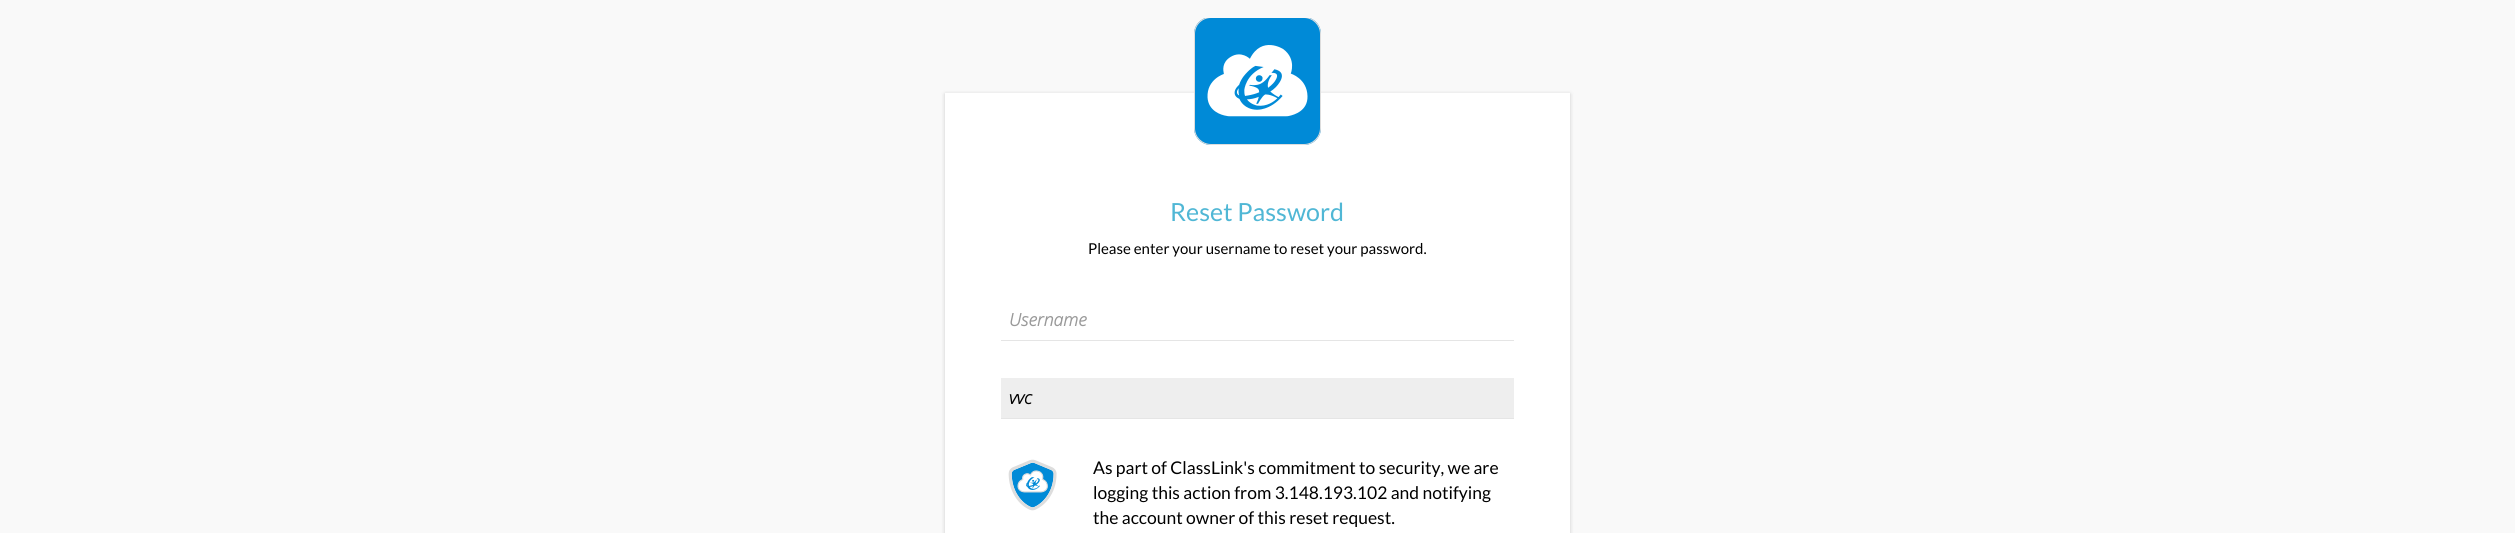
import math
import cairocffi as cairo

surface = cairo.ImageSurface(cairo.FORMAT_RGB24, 2515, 533)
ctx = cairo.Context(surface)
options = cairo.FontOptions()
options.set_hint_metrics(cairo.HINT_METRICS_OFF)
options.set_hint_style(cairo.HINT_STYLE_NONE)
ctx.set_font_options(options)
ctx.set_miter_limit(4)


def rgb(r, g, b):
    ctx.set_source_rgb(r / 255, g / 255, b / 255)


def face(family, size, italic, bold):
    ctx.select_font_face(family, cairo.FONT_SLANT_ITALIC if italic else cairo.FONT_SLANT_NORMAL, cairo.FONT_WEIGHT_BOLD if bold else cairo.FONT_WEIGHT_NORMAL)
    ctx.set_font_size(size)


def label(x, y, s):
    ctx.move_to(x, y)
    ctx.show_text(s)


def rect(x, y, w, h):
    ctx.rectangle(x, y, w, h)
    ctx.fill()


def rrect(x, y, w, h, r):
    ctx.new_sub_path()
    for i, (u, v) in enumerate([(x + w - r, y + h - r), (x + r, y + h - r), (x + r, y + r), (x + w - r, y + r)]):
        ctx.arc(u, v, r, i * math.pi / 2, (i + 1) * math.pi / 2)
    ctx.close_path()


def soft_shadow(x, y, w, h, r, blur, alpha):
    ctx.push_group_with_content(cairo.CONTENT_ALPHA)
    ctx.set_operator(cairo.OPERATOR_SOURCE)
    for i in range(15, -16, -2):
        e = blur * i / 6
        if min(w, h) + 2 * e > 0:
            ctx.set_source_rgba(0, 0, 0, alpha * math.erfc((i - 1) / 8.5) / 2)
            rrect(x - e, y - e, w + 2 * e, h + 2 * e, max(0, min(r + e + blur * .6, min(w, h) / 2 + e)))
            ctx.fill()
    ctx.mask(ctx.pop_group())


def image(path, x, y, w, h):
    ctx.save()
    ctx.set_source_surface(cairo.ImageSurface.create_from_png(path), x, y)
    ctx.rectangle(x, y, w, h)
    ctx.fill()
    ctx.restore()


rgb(249, 249, 249)
ctx.paint()
rgb(20, 20, 21)
soft_shadow(945, 94, 625, 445, 0, 2, 0.2)
rgb(255, 255, 255)
rect(945, 93, 625, 440)
image('image0.png', 1194, 18, 127, 127)
face('Lato', 25, 0, 0)
rgb(80, 183, 213)
label(1170, 221, 'Reset Password')
face('Lato', 15, 0, 0)
rgb(0, 0, 0)
label(1088, 254, 'Please enter your username to reset your password.')
rgb(229, 229, 229)
rect(1001, 340, 513, 1)
face('Open Sans', 17.5, 1, 1)
rgb(153, 153, 153)
label(1009, 326, 'Username')
rgb(238, 238, 238)
rect(1001, 378, 513, 40)
rgb(229, 229, 229)
rect(1001, 418, 513, 1)
rgb(0, 0, 0)
label(1009, 404, 'vvc')
image('image1.png', 1008, 459, 49, 52)
face('Lato', 17.5, 0, 0)
label(1093, 474, 'As part of ClassLink\'s commitment to security, we are')
label(1093, 499, 'logging this action from 3.148.193.102 and notifying')
label(1093, 524, 'the account owner of this reset request.')
surface.write_to_png('render.png')
